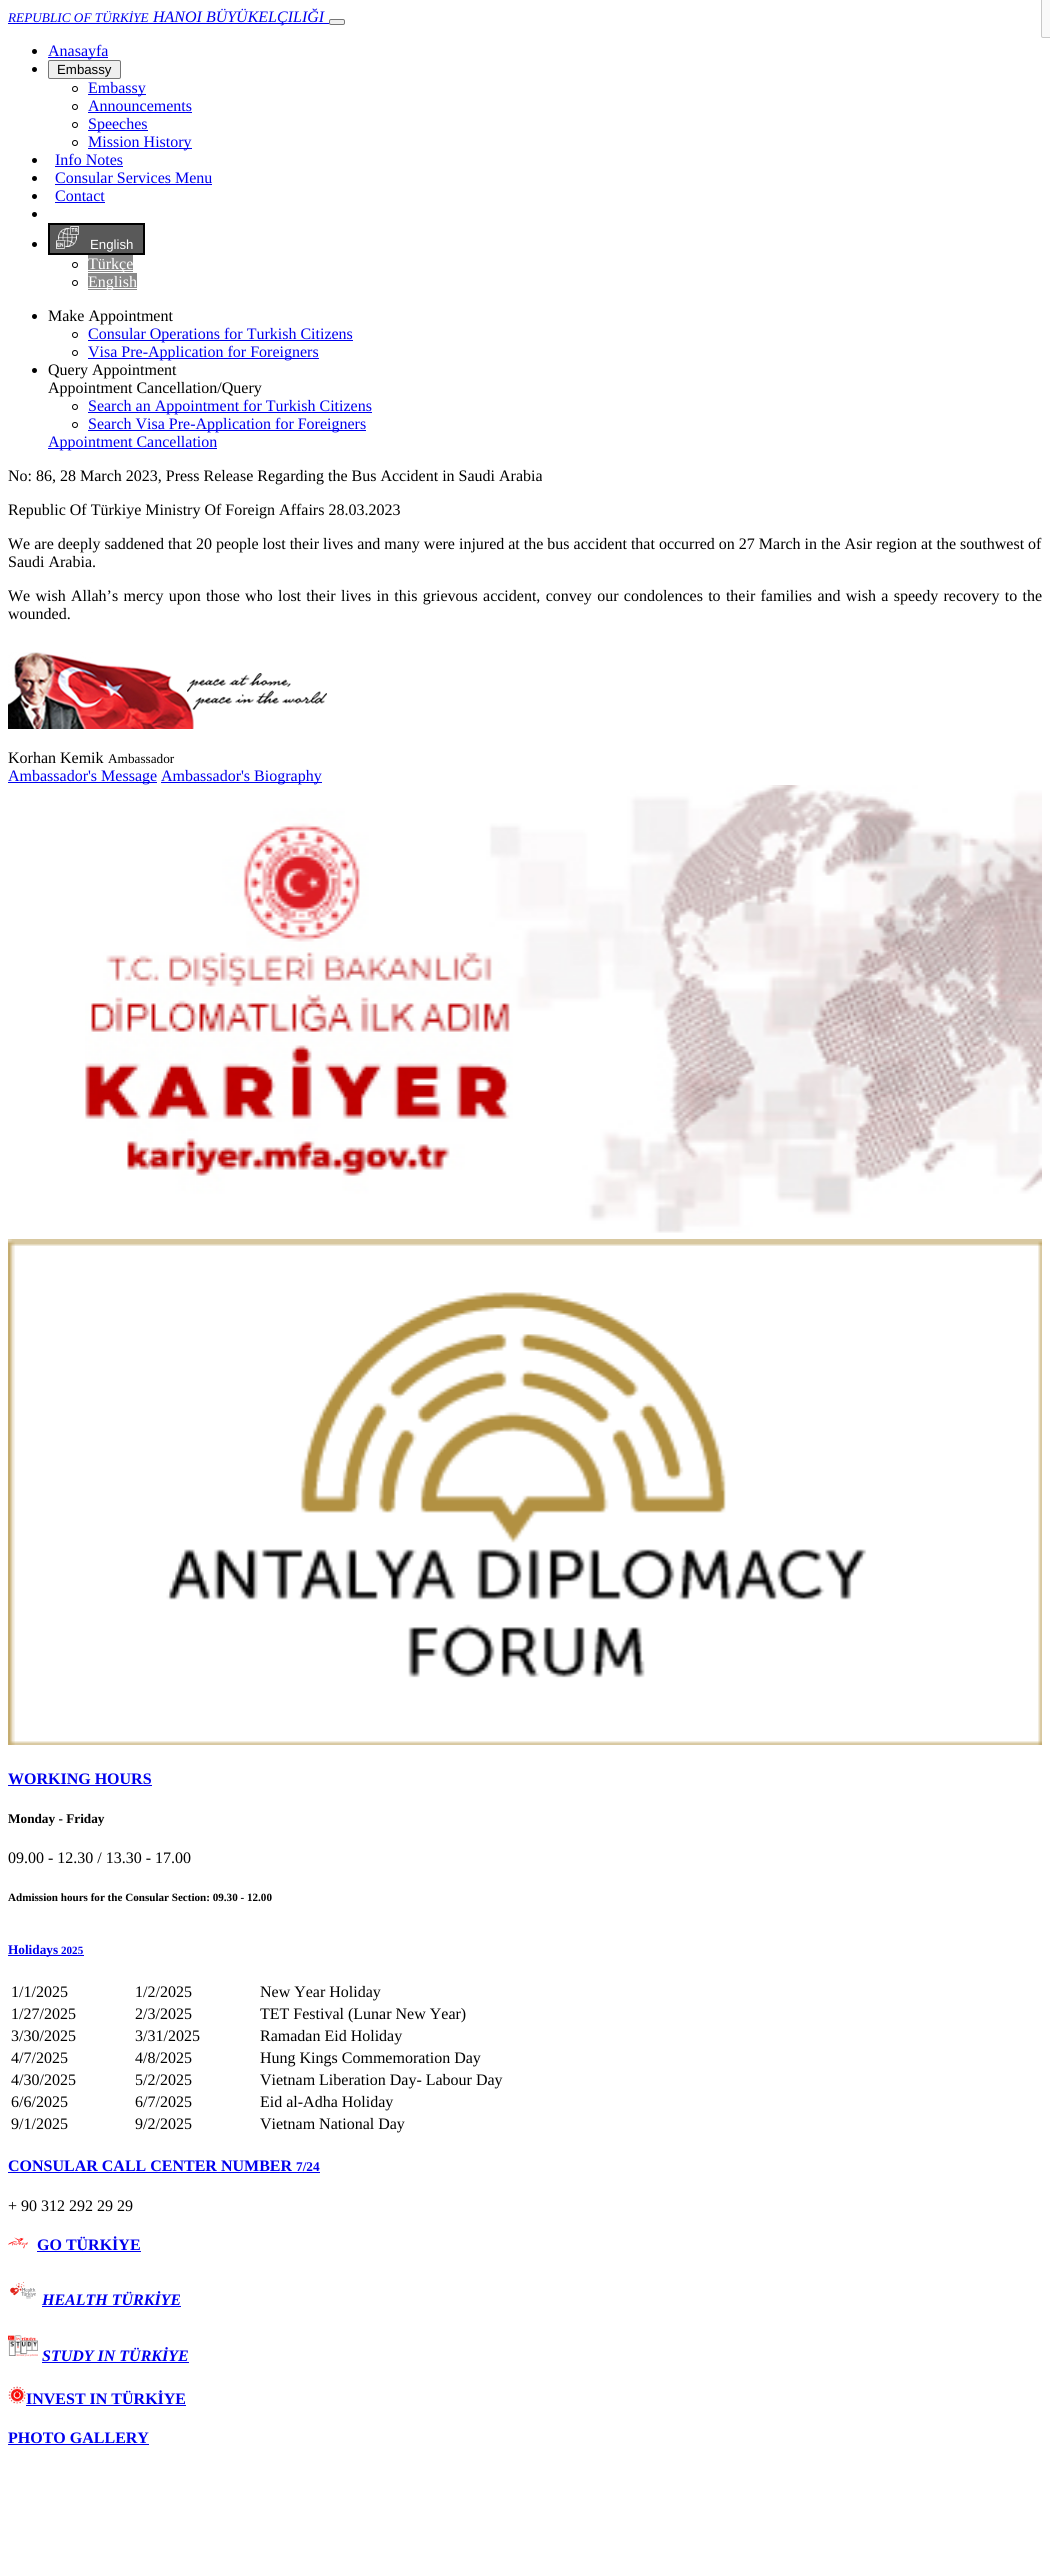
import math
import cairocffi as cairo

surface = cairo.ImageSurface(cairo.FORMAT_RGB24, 1050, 2561)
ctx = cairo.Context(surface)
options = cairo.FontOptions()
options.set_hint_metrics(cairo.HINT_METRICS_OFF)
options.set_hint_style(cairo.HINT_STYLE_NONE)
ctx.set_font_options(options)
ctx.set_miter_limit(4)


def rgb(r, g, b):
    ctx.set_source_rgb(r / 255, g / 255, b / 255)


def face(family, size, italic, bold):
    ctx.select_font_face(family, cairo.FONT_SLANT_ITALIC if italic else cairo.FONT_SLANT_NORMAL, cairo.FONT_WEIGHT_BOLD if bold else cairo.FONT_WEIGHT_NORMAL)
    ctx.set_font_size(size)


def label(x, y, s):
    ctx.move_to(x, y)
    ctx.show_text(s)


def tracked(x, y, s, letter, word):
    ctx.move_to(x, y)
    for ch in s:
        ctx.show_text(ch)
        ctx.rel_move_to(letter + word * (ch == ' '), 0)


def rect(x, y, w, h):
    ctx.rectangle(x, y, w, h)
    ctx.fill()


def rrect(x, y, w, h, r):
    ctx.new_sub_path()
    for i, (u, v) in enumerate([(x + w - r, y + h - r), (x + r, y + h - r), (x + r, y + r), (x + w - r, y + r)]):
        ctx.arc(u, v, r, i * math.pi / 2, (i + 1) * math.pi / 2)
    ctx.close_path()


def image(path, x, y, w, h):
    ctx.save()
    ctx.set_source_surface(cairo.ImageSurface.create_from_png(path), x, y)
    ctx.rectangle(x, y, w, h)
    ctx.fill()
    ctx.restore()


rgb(255, 255, 255)
ctx.paint()
face('Liberation Serif', 13.25, 1, 0)
rgb(0, 0, 238)
label(8, 22, 'REPUBLIC OF TÜRKİYE')
rect(8, 23, 317, 1)
face('Liberation Serif', 16, 1, 0)
label(153, 22, 'HANOI BÜYÜKELÇILIĞI')
rect(325, 23, 4, 1)
rgb(239, 239, 239)
rrect(329.5, 19.5, 15, 5, 1.5)
ctx.fill_preserve()
rgb(118, 118, 118)
ctx.set_line_width(1)
ctx.stroke()
rgb(0, 0, 0)
ctx.arc(34.5, 51.5, 2.5, 0, 2 * math.pi)
ctx.fill()
rgb(0, 0, 238)
rect(48, 57, 60, 1)
face('Liberation Serif', 16, 0, 0)
label(48, 56, 'Anasayfa')
rgb(0, 0, 0)
ctx.new_path()
ctx.arc(34.5, 69.5, 2.5, 0, 2 * math.pi)
ctx.fill()
rgb(239, 239, 239)
rrect(48.5, 60.5, 72, 18, 1.5)
ctx.fill_preserve()
rgb(118, 118, 118)
ctx.stroke()
face('Liberation Sans', 13.25, 0, 0)
rgb(0, 0, 0)
label(57, 74, 'Embassy')
ctx.new_path()
ctx.arc(75, 89, 2.5, 0, 2 * math.pi)
ctx.stroke()
rgb(0, 0, 238)
rect(88, 94, 58, 1)
face('Liberation Serif', 16, 0, 0)
label(88, 93, 'Embassy')
ctx.new_path()
ctx.arc(75, 107, 2.5, 0, 2 * math.pi)
rgb(0, 0, 0)
ctx.stroke()
rgb(0, 0, 238)
label(88, 111, 'Announcements')
rect(88, 112, 104, 1)
ctx.new_path()
ctx.arc(75, 125, 2.5, 0, 2 * math.pi)
rgb(0, 0, 0)
ctx.stroke()
rgb(0, 0, 238)
rect(88, 130, 60, 1)
label(88, 129, 'Speeches')
ctx.new_path()
ctx.arc(75, 143, 2.5, 0, 2 * math.pi)
rgb(0, 0, 0)
ctx.stroke()
rgb(0, 0, 238)
rect(88, 148, 104, 1)
label(88, 147, 'Mission History')
rgb(0, 0, 0)
ctx.new_path()
ctx.arc(34.5, 160.5, 2.5, 0, 2 * math.pi)
ctx.fill()
rgb(0, 0, 238)
label(55, 165, 'Info Notes')
rect(55, 166, 68, 1)
rgb(0, 0, 0)
ctx.new_path()
ctx.arc(34.5, 178.5, 2.5, 0, 2 * math.pi)
ctx.fill()
rgb(0, 0, 238)
label(55, 183, 'Consular Services Menu')
rect(55, 184, 157, 1)
rgb(0, 0, 0)
ctx.new_path()
ctx.arc(34.5, 196.5, 2.5, 0, 2 * math.pi)
ctx.fill()
rgb(0, 0, 238)
label(55, 201, 'Contact')
rect(55, 202, 50, 1)
rgb(0, 0, 0)
ctx.new_path()
ctx.arc(34.5, 214.5, 2.5, 0, 2 * math.pi)
ctx.fill()
ctx.arc(34.5, 244.5, 2.5, 0, 2 * math.pi)
ctx.fill()
rgb(89, 89, 89)
ctx.rectangle(49, 224, 95, 30)
ctx.fill_preserve()
rgb(0, 0, 0)
ctx.set_line_width(2)
ctx.stroke()
image('image0.png', 56, 226, 23, 23)
face('Liberation Sans', 13.25, 0, 0)
rgb(255, 255, 255)
label(90, 249, 'English')
ctx.new_path()
ctx.arc(75, 265, 2.5, 0, 2 * math.pi)
rgb(0, 0, 0)
ctx.set_line_width(1)
ctx.stroke()
rgb(137, 137, 137)
rect(88, 255, 45, 17)
rgb(255, 255, 255)
rect(88, 270, 45, 1)
face('Liberation Serif', 16, 0, 0)
label(88, 269, 'Türkçe')
ctx.new_path()
ctx.arc(75, 283, 2.5, 0, 2 * math.pi)
rgb(0, 0, 0)
ctx.stroke()
rgb(137, 137, 137)
rect(88, 273, 49, 17)
rgb(255, 255, 255)
rect(88, 288, 49, 1)
label(88, 287, 'English')
rgb(0, 0, 0)
ctx.new_path()
ctx.arc(34.5, 316.5, 2.5, 0, 2 * math.pi)
ctx.fill()
label(48, 321, 'Make Appointment')
ctx.new_path()
ctx.arc(75, 335, 2.5, 0, 2 * math.pi)
ctx.stroke()
rgb(0, 0, 238)
rect(88, 340, 265, 1)
label(88, 339, 'Consular Operations for Turkish Citizens')
ctx.new_path()
ctx.arc(75, 353, 2.5, 0, 2 * math.pi)
rgb(0, 0, 0)
ctx.stroke()
rgb(0, 0, 238)
rect(88, 358, 231, 1)
label(88, 357, 'Visa Pre-Application for Foreigners')
rgb(0, 0, 0)
ctx.new_path()
ctx.arc(34.5, 370.5, 2.5, 0, 2 * math.pi)
ctx.fill()
label(48, 375, 'Query Appointment')
label(48, 393, 'Appointment Cancellation/Query')
ctx.new_path()
ctx.arc(75, 407, 2.5, 0, 2 * math.pi)
ctx.stroke()
rgb(0, 0, 238)
rect(88, 412, 284, 1)
label(88, 411, 'Search an Appointment for Turkish Citizens')
ctx.new_path()
ctx.arc(75, 425, 2.5, 0, 2 * math.pi)
rgb(0, 0, 0)
ctx.stroke()
rgb(0, 0, 238)
rect(88, 430, 278, 1)
label(88, 429, 'Search Visa Pre-Application for Foreigners')
rect(48, 448, 169, 1)
label(48, 447, 'Appointment Cancellation')
rgb(0, 0, 0)
label(8, 481, 'No: 86, 28 March 2023, Press Release Regarding the Bus Accident in Saudi Arabia')
label(8, 515, 'Republic Of Türkiye Ministry Of Foreign Affairs 28.03.2023')
label(8, 549, 'We are deeply saddened that 20 people lost their lives and many were injured at the bus accident that occurred on 27 March in the Asir region at the southwest of')
label(8, 567, 'Saudi Arabia.')
tracked(8, 601, 'We wish Allah’s mercy upon those who lost their lives in this grievous accident, convey our condolences to their families and wish a speedy recovery to the', 0, 1.3)
label(8, 619, 'wounded.')
image('image1.png', 8, 652, 319, 77)
label(8, 763, 'Korhan Kemik')
face('Liberation Serif', 13.25, 0, 0)
label(108, 763, 'Ambassador')
rgb(0, 0, 238)
rect(8, 782, 149, 1)
face('Liberation Serif', 16, 0, 0)
label(8, 781, 'Ambassador\'s Message')
rect(161, 782, 161, 1)
label(161, 781, 'Ambassador\'s Biography')
image('image2.png', 85, 785, 957, 448)
image('image3.png', 8, 1239, 1034, 506)
face('Liberation Serif', 16, 0, 1)
label(8, 1784, 'WORKING HOURS')
rect(8, 1785, 144, 1)
face('Liberation Serif', 13.25, 0, 1)
rgb(0, 0, 0)
label(8, 1823, 'Monday - Friday')
face('Liberation Serif', 16, 0, 0)
label(8, 1863, '09.00 - 12.30 / 13.30 - 17.00')
face('Liberation Serif', 11.1, 0, 1)
label(8, 1901, 'Admission hours for the Consular Section: 09.30 - 12.00')
rgb(0, 0, 238)
rect(8, 1955, 76, 1)
face('Liberation Serif', 13.25, 0, 1)
label(8, 1954, 'Holidays')
face('Liberation Serif', 11.1, 0, 1)
label(61, 1954, '2025')
face('Liberation Serif', 16, 0, 0)
rgb(0, 0, 0)
label(11, 1997, '1/1/2025')
label(135, 1997, '1/2/2025')
label(260, 1997, 'New Year Holiday')
label(11, 2019, '1/27/2025')
label(135, 2019, '2/3/2025')
label(260, 2019, 'TET Festival (Lunar New Year)')
label(11, 2041, '3/30/2025')
label(135, 2041, '3/31/2025')
label(260, 2041, 'Ramadan Eid Holiday')
label(11, 2063, '4/7/2025')
label(135, 2063, '4/8/2025')
label(260, 2063, 'Hung Kings Commemoration Day')
label(11, 2085, '4/30/2025')
label(135, 2085, '5/2/2025')
label(260, 2085, 'Vietnam Liberation Day- Labour Day')
label(11, 2107, '6/6/2025')
label(135, 2107, '6/7/2025')
label(260, 2107, 'Eid al-Adha Holiday')
label(11, 2129, '9/1/2025')
label(135, 2129, '9/2/2025')
label(260, 2129, 'Vietnam National Day')
face('Liberation Serif', 16, 0, 1)
rgb(0, 0, 238)
label(8, 2171, 'CONSULAR CALL CENTER NUMBER')
face('Liberation Serif', 13.25, 0, 1)
label(296, 2171, '7/24')
rect(8, 2172, 312, 1)
face('Liberation Serif', 16, 0, 0)
rgb(0, 0, 0)
label(8, 2211, '+ 90 312 292 29 29')
image('image4.png', 8, 2237, 20, 12)
face('Liberation Serif', 16, 0, 1)
rgb(0, 0, 238)
label(37, 2250, 'GO TÜRKİYE')
rect(37, 2251, 104, 1)
image('image5.png', 10, 2281, 26, 18)
face('Liberation Serif', 16, 1, 1)
label(42, 2305, 'HEALTH TÜRKİYE')
rect(42, 2306, 139, 1)
image('image6.png', 8, 2335, 30, 22)
label(42, 2361, 'STUDY IN TÜRKİYE')
rect(42, 2362, 147, 1)
image('image7.png', 8, 2386, 18, 18)
face('Liberation Serif', 16, 0, 1)
label(26, 2404, 'INVEST IN TÜRKİYE')
rect(26, 2405, 160, 1)
label(8, 2443, 'PHOTO GALLERY')
rect(8, 2444, 141, 1)
rgb(249, 249, 249)
rrect(1041.5, -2.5, 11, 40, 1.5)
ctx.fill_preserve()
rgb(200, 200, 200)
ctx.stroke()
surface.write_to_png('render.png')
